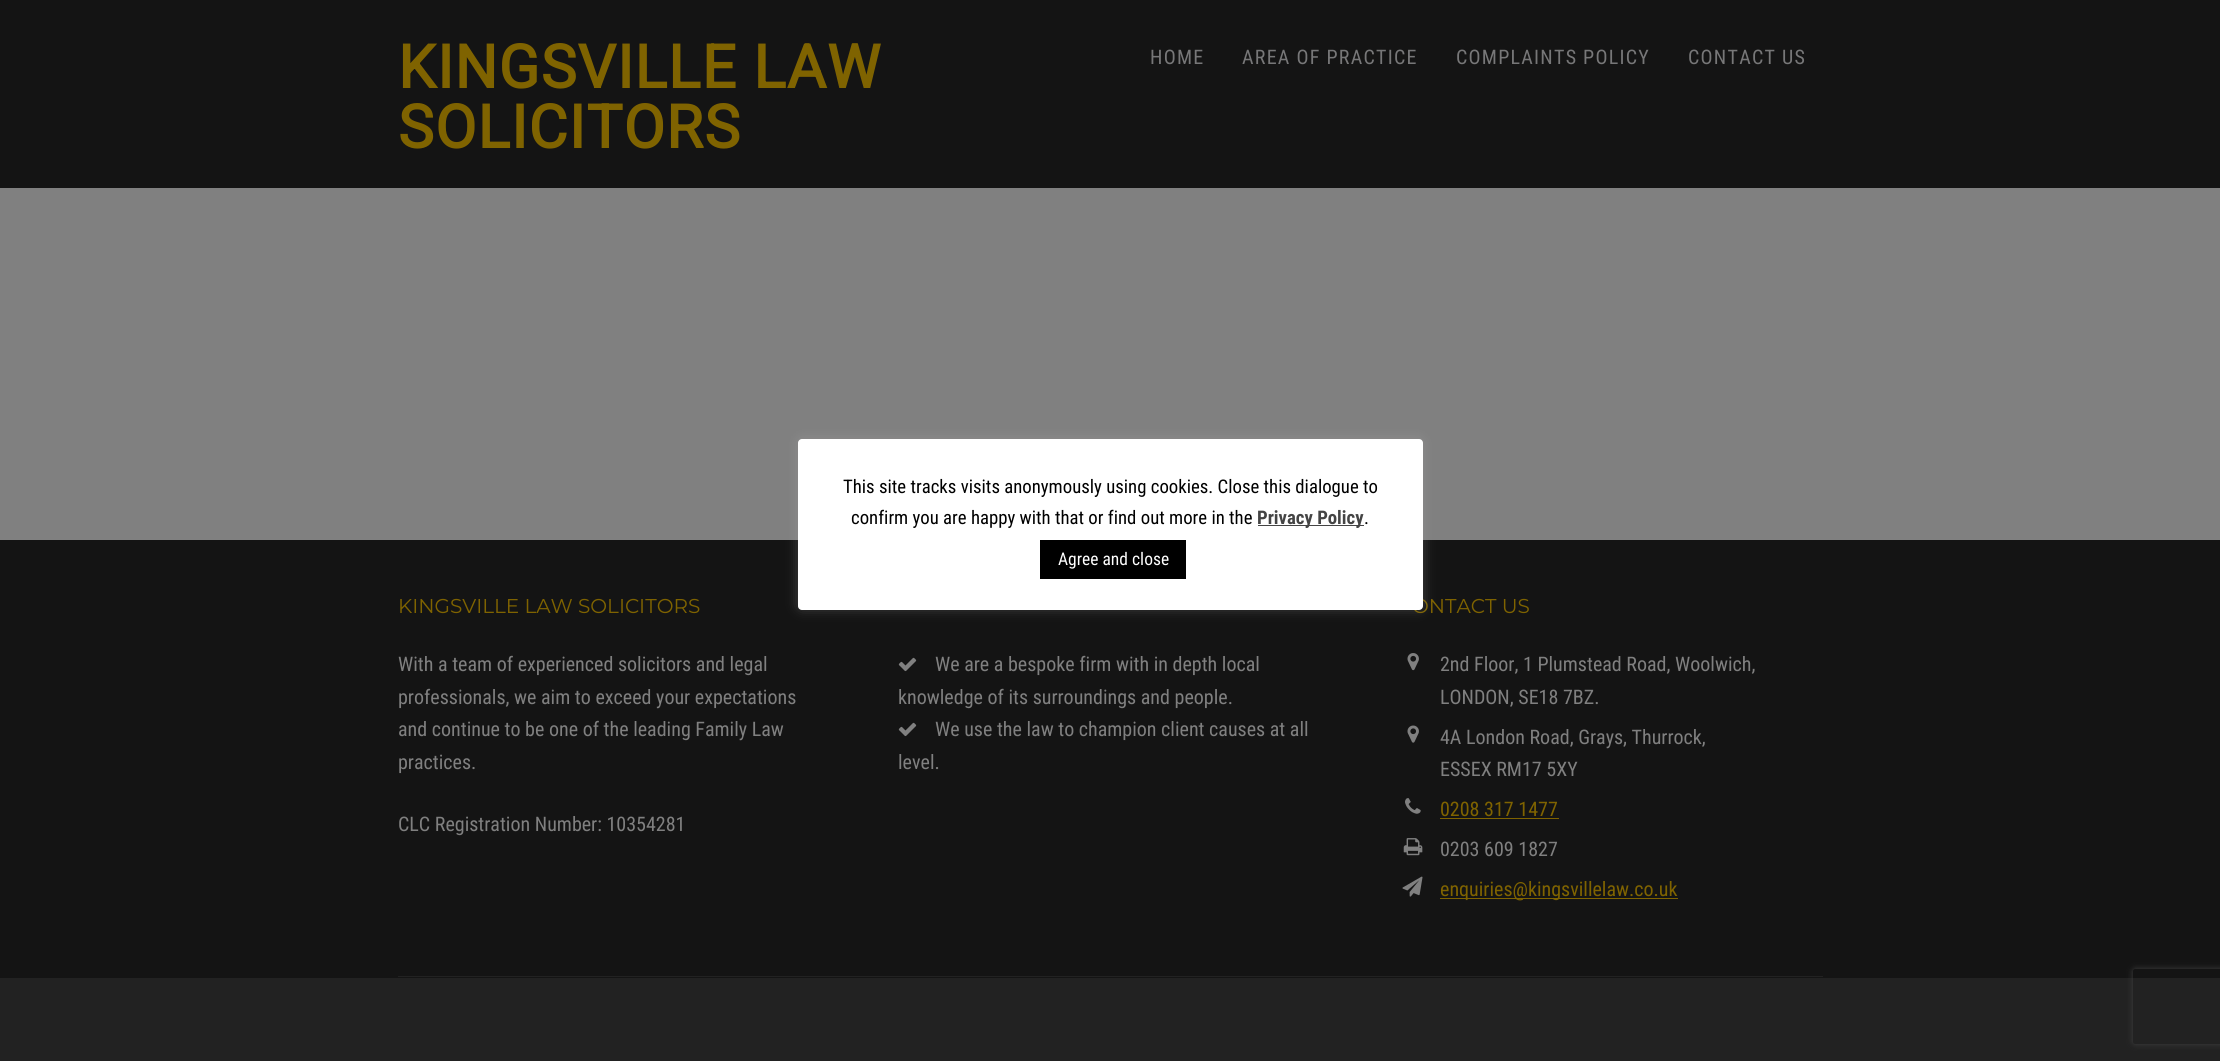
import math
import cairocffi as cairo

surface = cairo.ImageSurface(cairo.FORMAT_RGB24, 2220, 1061)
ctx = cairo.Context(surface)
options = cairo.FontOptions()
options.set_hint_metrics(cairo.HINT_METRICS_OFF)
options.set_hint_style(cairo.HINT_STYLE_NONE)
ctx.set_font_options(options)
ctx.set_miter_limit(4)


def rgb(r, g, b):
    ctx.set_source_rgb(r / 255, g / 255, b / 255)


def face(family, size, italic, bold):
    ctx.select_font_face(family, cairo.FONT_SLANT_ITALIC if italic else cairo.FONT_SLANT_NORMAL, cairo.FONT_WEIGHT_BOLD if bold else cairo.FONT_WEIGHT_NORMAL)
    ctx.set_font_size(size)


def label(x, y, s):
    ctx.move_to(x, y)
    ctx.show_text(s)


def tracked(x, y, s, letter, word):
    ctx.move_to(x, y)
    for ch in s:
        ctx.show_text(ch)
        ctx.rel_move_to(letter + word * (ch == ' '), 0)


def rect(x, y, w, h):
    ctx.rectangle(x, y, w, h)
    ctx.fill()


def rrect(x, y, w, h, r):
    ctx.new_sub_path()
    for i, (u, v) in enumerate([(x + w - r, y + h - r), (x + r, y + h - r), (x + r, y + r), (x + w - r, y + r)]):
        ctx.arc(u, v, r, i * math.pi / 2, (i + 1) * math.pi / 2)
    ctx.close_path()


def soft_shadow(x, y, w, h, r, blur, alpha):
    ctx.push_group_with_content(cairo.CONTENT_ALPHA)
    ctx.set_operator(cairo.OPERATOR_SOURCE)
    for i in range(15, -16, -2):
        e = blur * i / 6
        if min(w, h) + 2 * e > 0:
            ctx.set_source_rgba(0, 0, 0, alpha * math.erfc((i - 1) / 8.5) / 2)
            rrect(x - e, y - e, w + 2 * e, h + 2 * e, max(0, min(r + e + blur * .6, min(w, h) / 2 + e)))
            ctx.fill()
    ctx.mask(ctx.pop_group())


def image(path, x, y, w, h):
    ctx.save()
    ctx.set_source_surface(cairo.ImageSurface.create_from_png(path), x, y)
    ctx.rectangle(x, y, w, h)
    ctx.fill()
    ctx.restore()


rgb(128, 128, 128)
ctx.paint()
rgb(20, 20, 20)
rect(0, 0, 2220, 188)
face('Roboto', 60, 0, 1)
rgb(127, 99, 0)
tracked(398, 88, 'KINGSVILLE LAW', 1.25, 0)
tracked(398, 148, 'SOLICITORS', 1.25, 0)
face('Roboto Condensed', 20, 0, 0)
rgb(119, 119, 120)
tracked(1150, 64, 'HOME', 1.25, 0)
tracked(1242, 64, 'AREA OF PRACTICE', 1.25, 0)
tracked(1456, 64, 'COMPLAINTS POLICY', 1.25, 0)
tracked(1688, 64, 'CONTACT US', 1.25, 0)
rgb(20, 20, 20)
rect(0, 540, 2220, 438)
rgb(34, 34, 34)
rect(398, 976, 1425, 1)
face('Montserrat', 20, 0, 0)
rgb(127, 99, 0)
label(398, 613, 'KINGSVILLE LAW SOLICITORS')
face('Roboto Condensed', 20, 0, 0)
rgb(128, 128, 128)
label(398, 671, 'With a team of experienced solicitors and legal')
label(398, 704, 'professionals, we aim to exceed your expectations')
label(398, 736, 'and continue to be one of the leading Family Law')
label(398, 769, 'practices.')
label(398, 831, 'CLC Registration Number: 10354281')
image('image0.png', 898, 657, 19, 15)
label(935, 671, 'We are a bespoke firm with in depth local')
label(898, 704, 'knowledge of its surroundings and people.')
image('image0.png', 898, 722, 19, 15)
label(935, 736, 'We use the law to champion client causes at all')
label(898, 769, 'level.')
face('Montserrat', 20, 0, 0)
rgb(127, 99, 0)
label(1412, 613, 'ONTACT US')
image('image1.png', 1407, 653, 12, 18)
face('Roboto Condensed', 20, 0, 0)
rgb(128, 128, 128)
label(1440, 671, '2nd Floor, 1 Plumstead Road, Woolwich,')
label(1440, 704, 'LONDON, SE18 7BZ.')
image('image2.png', 1407, 725, 12, 18)
label(1440, 744, '4A London Road, Grays, Thurrock,')
label(1440, 776, 'ESSEX RM17 5XY')
image('image3.png', 1405, 798, 16, 16)
rgb(127, 99, 0)
label(1440, 816, '0208 317 1477')
rect(1440, 818, 119, 1)
image('image4.png', 1403, 838, 20, 18)
rgb(128, 128, 128)
label(1440, 856, '0203 609 1827')
image('image5.png', 1402, 876, 21, 21)
rgb(127, 99, 0)
rect(1440, 898, 238, 1)
label(1440, 896, 'enquiries@kingsvillelaw.co.uk')
rgb(34, 34, 34)
rect(0, 978, 2220, 83)
rgb(172, 171, 171)
soft_shadow(798, 438, 625, 171, 4, 6, 0.3)
rgb(255, 255, 255)
rrect(798, 439, 625, 171, 4)
ctx.fill()
face('Roboto Condensed', 18.75, 0, 0)
rgb(0, 0, 0)
label(843, 493, 'This site tracks visits anonymously using cookies. Close this dialogue to')
label(851, 524, 'confirm you are happy with that or find out more in the')
rgb(68, 68, 68)
rect(1258, 525, 106, 1)
face('Roboto Condensed', 18.75, 0, 1)
label(1257, 524, 'Privacy Policy')
face('Roboto Condensed', 18.75, 0, 0)
rgb(0, 0, 0)
label(1364, 524, '.')
rect(1040, 540, 146, 39)
face('Roboto Condensed', 17.5, 0, 0)
rgb(255, 255, 255)
label(1058, 565, 'Agree and close')
ctx.save()
ctx.set_fill_rule(cairo.FILL_RULE_EVEN_ODD)
ctx.new_path()
ctx.move_to(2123, 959)
ctx.line_to(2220, 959)
ctx.line_to(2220, 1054)
ctx.line_to(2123, 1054)
ctx.close_path()
ctx.move_to(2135.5, 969)
ctx.line_to(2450.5, 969)
ctx.curve_to(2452, 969, 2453, 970, 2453, 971.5)
ctx.line_to(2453, 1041.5)
ctx.curve_to(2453, 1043, 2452, 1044, 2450.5, 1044)
ctx.line_to(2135.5, 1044)
ctx.curve_to(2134, 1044, 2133, 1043, 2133, 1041.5)
ctx.line_to(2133, 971.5)
ctx.curve_to(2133, 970, 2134, 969, 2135.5, 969)
ctx.close_path()
ctx.clip()
rgb(64, 64, 64)
soft_shadow(2133, 969, 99, 75, 2.5, 3, 1)
ctx.restore()
surface.write_to_png('render.png')
